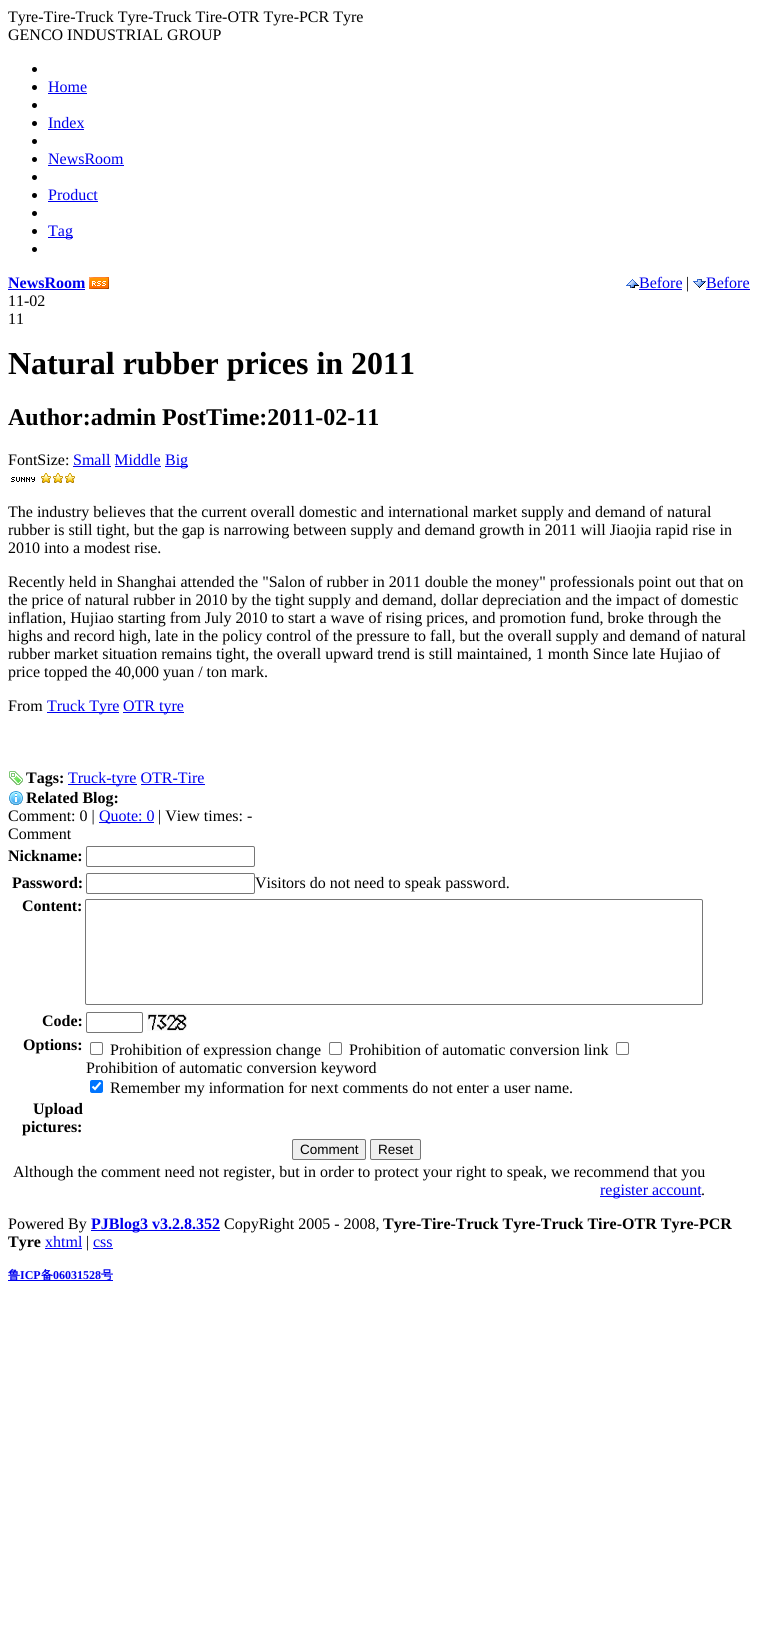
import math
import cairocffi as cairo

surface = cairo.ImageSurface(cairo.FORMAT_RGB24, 758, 1634)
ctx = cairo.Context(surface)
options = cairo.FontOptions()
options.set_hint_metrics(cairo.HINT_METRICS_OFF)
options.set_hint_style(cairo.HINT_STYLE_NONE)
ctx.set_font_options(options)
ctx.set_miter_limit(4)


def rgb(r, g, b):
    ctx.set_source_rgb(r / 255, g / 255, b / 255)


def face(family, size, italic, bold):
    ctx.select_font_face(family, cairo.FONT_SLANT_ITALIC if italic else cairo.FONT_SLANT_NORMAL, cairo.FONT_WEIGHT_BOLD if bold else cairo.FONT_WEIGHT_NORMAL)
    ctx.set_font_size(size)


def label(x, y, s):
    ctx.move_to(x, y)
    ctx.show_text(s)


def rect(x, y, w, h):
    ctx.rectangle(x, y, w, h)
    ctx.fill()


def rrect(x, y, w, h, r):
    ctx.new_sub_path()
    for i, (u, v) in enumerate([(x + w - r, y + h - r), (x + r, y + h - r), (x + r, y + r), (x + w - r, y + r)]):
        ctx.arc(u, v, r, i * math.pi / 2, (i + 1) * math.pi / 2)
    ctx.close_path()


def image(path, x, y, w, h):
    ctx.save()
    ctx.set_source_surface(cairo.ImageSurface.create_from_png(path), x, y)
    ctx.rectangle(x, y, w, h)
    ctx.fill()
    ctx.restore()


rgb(255, 255, 255)
ctx.paint()
face('Liberation Serif', 16, 0, 0)
rgb(0, 0, 0)
label(8, 22, 'Tyre-Tire-Truck Tyre-Truck Tire-OTR Tyre-PCR Tyre')
label(8, 40, 'GENCO INDUSTRIAL GROUP')
ctx.new_path()
ctx.arc(34.5, 69.5, 2.5, 0, 2 * math.pi)
ctx.fill()
ctx.arc(34.5, 87.5, 2.5, 0, 2 * math.pi)
ctx.fill()
rgb(0, 0, 238)
label(48, 92, 'Home')
rect(48, 93, 39, 1)
rgb(0, 0, 0)
ctx.new_path()
ctx.arc(34.5, 105.5, 2.5, 0, 2 * math.pi)
ctx.fill()
ctx.arc(34.5, 123.5, 2.5, 0, 2 * math.pi)
ctx.fill()
rgb(0, 0, 238)
label(48, 128, 'Index')
rect(48, 129, 36, 1)
rgb(0, 0, 0)
ctx.new_path()
ctx.arc(34.5, 141.5, 2.5, 0, 2 * math.pi)
ctx.fill()
ctx.arc(34.5, 159.5, 2.5, 0, 2 * math.pi)
ctx.fill()
rgb(0, 0, 238)
label(48, 164, 'NewsRoom')
rect(48, 165, 76, 1)
rgb(0, 0, 0)
ctx.new_path()
ctx.arc(34.5, 177.5, 2.5, 0, 2 * math.pi)
ctx.fill()
ctx.arc(34.5, 195.5, 2.5, 0, 2 * math.pi)
ctx.fill()
rgb(0, 0, 238)
label(48, 200, 'Product')
rect(48, 201, 50, 1)
rgb(0, 0, 0)
ctx.new_path()
ctx.arc(34.5, 213.5, 2.5, 0, 2 * math.pi)
ctx.fill()
ctx.arc(34.5, 231.5, 2.5, 0, 2 * math.pi)
ctx.fill()
rgb(0, 0, 238)
rect(48, 237, 25, 1)
label(48, 236, 'Tag')
rgb(0, 0, 0)
ctx.new_path()
ctx.arc(34.5, 249.5, 2.5, 0, 2 * math.pi)
ctx.fill()
face('Liberation Serif', 16, 0, 1)
rgb(0, 0, 238)
label(8, 288, 'NewsRoom')
rect(8, 289, 77, 1)
image('image0.png', 89, 277, 20, 12)
image('image1.png', 626, 279, 13, 9)
face('Liberation Serif', 16, 0, 0)
label(639, 288, 'Before')
rect(639, 289, 43, 1)
rgb(0, 0, 0)
label(686, 288, '|')
image('image2.png', 693, 279, 13, 9)
rgb(0, 0, 238)
label(706, 288, 'Before')
rect(706, 289, 44, 1)
rgb(0, 0, 0)
label(8, 306, '11-02')
label(8, 324, '11')
face('Liberation Serif', 32, 0, 1)
label(8, 374, 'Natural rubber prices in 2011')
face('Liberation Serif', 24, 0, 1)
label(8, 425, 'Author:admin PostTime:2011-02-11')
face('Liberation Serif', 16, 0, 0)
label(8, 465, 'FontSize:')
rgb(0, 0, 238)
label(73, 465, 'Small Middle')
rect(73, 466, 38, 1)
rect(165, 466, 23, 1)
label(165, 465, 'Big')
rect(115, 466, 46, 1)
image('image3.png', 11, 477, 24, 5)
image('image4.png', 41, 473, 34, 10)
rgb(0, 0, 0)
label(8, 517, 'The industry believes that the current overall domestic and international market supply and demand of natural')
label(8, 535, 'rubber is still tight, but the gap is narrowing between supply and demand growth in 2011 will Jiaojia rapid rise in')
label(8, 553, '2010 into a modest rise.')
label(8, 587, 'Recently held in Shanghai attended the "Salon of rubber in 2011 double the money" professionals point out that on')
label(8, 605, 'the price of natural rubber in 2010 by the tight supply and demand, dollar depreciation and the impact of domestic')
label(8, 623, 'inflation, Hujiao starting from July 2010 to start a wave of rising prices, and promotion fund, broke through the')
label(8, 641, 'highs and record high, late in the policy control of the pressure to fall, but the overall supply and demand of natural')
label(8, 659, 'rubber market situation remains tight, the overall upward trend is still maintained, 1 month Since late Hujiao of')
label(8, 677, 'price topped the 40,000 yuan / ton mark.')
label(8, 711, 'From')
rgb(0, 0, 238)
rect(47, 712, 72, 1)
label(47, 711, 'Truck Tyre')
rect(123, 712, 61, 1)
label(123, 711, 'OTR tyre')
image('image5.png', 9, 771, 14, 14)
face('Liberation Serif', 16, 0, 1)
rgb(0, 0, 0)
label(26, 783, 'Tags:')
rgb(0, 0, 238)
rect(68, 784, 69, 1)
face('Liberation Serif', 16, 0, 0)
label(68, 783, 'Truck-tyre OTR-Tire')
rect(141, 784, 64, 1)
image('image6.png', 9, 791, 14, 14)
face('Liberation Serif', 16, 0, 1)
rgb(0, 0, 0)
label(26, 803, 'Related Blog:')
face('Liberation Serif', 16, 0, 0)
label(8, 821, 'Comment: 0 |')
rgb(0, 0, 238)
rect(99, 822, 55, 1)
label(99, 821, 'Quote: 0')
rgb(0, 0, 0)
label(158, 821, '| View times: -')
label(8, 839, 'Comment')
face('Liberation Serif', 16, 0, 1)
label(8, 861, 'Nickname:')
rrect(86.5, 846.5, 168, 20, 1.5)
rgb(118, 118, 118)
ctx.set_line_width(1)
ctx.stroke()
rgb(0, 0, 0)
label(12, 888, 'Password:')
rrect(86.5, 873.5, 168, 20, 1.5)
rgb(118, 118, 118)
ctx.stroke()
face('Liberation Serif', 16, 0, 0)
rgb(0, 0, 0)
label(255, 888, 'Visitors do not need to speak password.')
face('Liberation Serif', 16, 0, 1)
label(22, 911, 'Content:')
rrect(85.5, 899.5, 617, 105, 1.5)
rgb(118, 118, 118)
ctx.stroke()
rgb(0, 0, 0)
label(42, 1026, 'Code:')
rrect(86.5, 1012.5, 56, 20, 1.5)
rgb(118, 118, 118)
ctx.stroke()
image('image7.png', 147, 1013, 40, 18)
rgb(0, 0, 0)
label(23, 1050, 'Options:')
rrect(90.5, 1042.5, 12, 12, 1.5)
rgb(118, 118, 118)
ctx.stroke()
face('Liberation Serif', 16, 0, 0)
rgb(0, 0, 0)
label(110, 1055, 'Prohibition of expression change')
rrect(329.5, 1042.5, 12, 12, 1.5)
rgb(118, 118, 118)
ctx.stroke()
rgb(0, 0, 0)
label(349, 1055, 'Prohibition of automatic conversion link')
rrect(616.5, 1042.5, 12, 12, 1.5)
rgb(118, 118, 118)
ctx.stroke()
rgb(0, 0, 0)
label(86, 1073, 'Prohibition of automatic conversion keyword')
rgb(0, 117, 255)
rrect(90, 1080, 13, 13, 2)
ctx.fill()
ctx.new_path()
ctx.move_to(92.5, 1086.5)
ctx.line_to(95, 1089)
ctx.line_to(100.5, 1082.5)
rgb(255, 255, 255)
ctx.set_line_width(2.1)
ctx.stroke()
rgb(0, 0, 0)
label(110, 1093, 'Remember my information for next comments do not enter a user name.')
face('Liberation Serif', 16, 0, 1)
label(33, 1114, 'Upload')
label(22, 1132, 'pictures:')
rgb(239, 239, 239)
rrect(292.5, 1139.5, 73, 20, 1.5)
ctx.fill_preserve()
rgb(118, 118, 118)
ctx.set_line_width(1)
ctx.stroke()
face('Liberation Sans', 13.5, 0, 0)
rgb(0, 0, 0)
label(300, 1154, 'Comment')
rgb(239, 239, 239)
rrect(370.5, 1139.5, 50, 20, 1.5)
ctx.fill_preserve()
rgb(118, 118, 118)
ctx.stroke()
rgb(0, 0, 0)
label(378, 1154, 'Reset')
face('Liberation Serif', 16, 0, 0)
label(13, 1177, 'Although the comment need not register, but in order to protect your right to speak, we recommend that you')
rgb(0, 0, 238)
rect(600, 1196, 101, 1)
label(600, 1195, 'register account')
rgb(0, 0, 0)
label(701, 1195, '.')
label(8, 1229, 'Powered By')
rgb(0, 0, 238)
rect(91, 1230, 129, 1)
face('Liberation Serif', 16, 0, 1)
label(91, 1229, 'PJBlog3 v3.2.8.352')
face('Liberation Serif', 16, 0, 0)
rgb(0, 0, 0)
label(224, 1229, 'CopyRight 2005 - 2008,')
face('Liberation Serif', 16, 0, 1)
label(383, 1229, 'Tyre-Tire-Truck Tyre-Truck Tire-OTR Tyre-PCR')
label(8, 1247, 'Tyre')
face('Liberation Serif', 16, 0, 0)
rgb(0, 0, 238)
label(45, 1247, 'xhtml')
rect(45, 1248, 37, 1)
rgb(0, 0, 0)
label(86, 1247, '|')
rgb(0, 0, 238)
label(93, 1247, 'css')
rect(93, 1248, 20, 1)
rect(8, 1280, 105, 1)
face('WenQuanYi Zen Hei', 12, 0, 1)
label(8, 1279, '鲁')
face('Liberation Serif', 12, 0, 1)
label(20, 1279, 'ICP')
face('WenQuanYi Zen Hei', 12, 0, 1)
label(41, 1279, '备')
face('Liberation Serif', 12, 0, 1)
label(53, 1279, '06031528')
face('WenQuanYi Zen Hei', 12, 0, 1)
label(101, 1279, '号')
surface.write_to_png('render.png')
